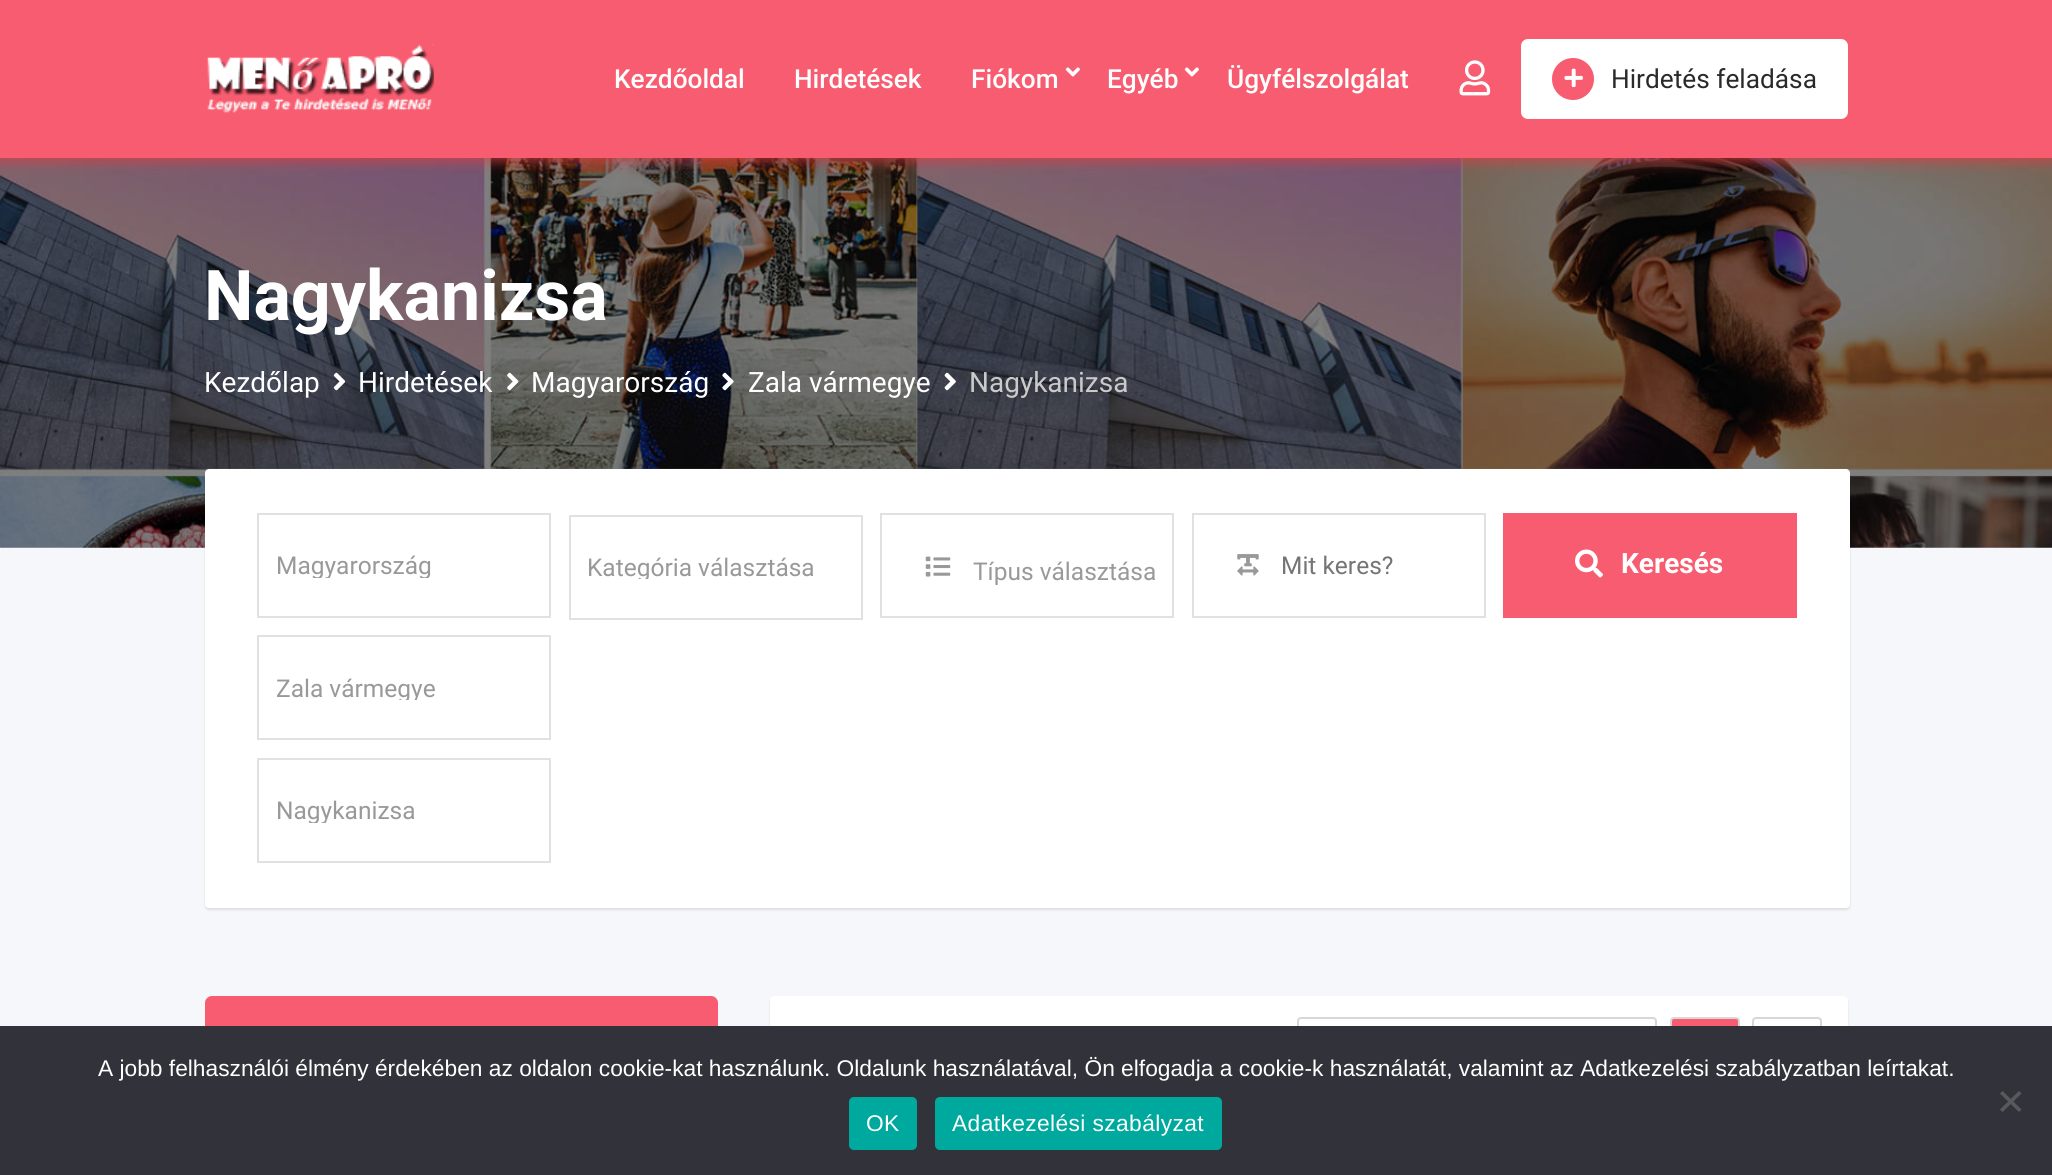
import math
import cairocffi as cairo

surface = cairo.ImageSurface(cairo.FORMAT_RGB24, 2052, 1175)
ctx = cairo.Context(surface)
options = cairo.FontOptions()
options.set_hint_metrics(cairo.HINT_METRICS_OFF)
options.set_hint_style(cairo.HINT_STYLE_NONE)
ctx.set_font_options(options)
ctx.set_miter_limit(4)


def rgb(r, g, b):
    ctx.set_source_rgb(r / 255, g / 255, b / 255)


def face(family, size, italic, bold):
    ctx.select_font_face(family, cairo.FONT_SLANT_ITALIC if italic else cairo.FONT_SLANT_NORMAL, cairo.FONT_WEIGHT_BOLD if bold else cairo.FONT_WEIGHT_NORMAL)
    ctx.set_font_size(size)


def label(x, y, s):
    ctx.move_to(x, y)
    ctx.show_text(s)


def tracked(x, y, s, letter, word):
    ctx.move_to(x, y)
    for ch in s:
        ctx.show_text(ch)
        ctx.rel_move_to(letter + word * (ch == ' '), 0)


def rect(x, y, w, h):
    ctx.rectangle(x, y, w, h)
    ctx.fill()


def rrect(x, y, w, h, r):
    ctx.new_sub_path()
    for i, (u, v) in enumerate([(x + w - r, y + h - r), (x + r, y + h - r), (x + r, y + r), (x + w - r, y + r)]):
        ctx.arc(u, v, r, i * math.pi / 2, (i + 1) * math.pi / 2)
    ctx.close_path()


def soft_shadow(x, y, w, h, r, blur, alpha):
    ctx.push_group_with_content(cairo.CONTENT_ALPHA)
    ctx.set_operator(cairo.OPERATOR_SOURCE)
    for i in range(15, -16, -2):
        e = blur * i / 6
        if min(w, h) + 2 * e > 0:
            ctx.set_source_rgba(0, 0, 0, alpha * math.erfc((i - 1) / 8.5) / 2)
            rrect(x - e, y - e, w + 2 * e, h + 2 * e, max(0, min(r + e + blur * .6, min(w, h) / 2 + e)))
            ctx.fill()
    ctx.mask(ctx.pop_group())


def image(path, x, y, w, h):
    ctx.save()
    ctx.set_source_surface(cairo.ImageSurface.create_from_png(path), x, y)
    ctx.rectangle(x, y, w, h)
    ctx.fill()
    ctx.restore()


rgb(245, 247, 250)
ctx.paint()
image('image4.png', 0, 158, 2052, 390)
rgb(228, 61, 64)
soft_shadow(0, 4, 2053, 157, 0, 7, 0.8)
rgb(248, 92, 112)
rect(0, 0, 2052, 158)
image('image0.png', 207, 43, 227, 70)
face('Roboto Medium', 26.25, 0, 0)
rgb(255, 255, 255)
label(614, 88, 'Kezdőoldal')
label(794, 88, 'Hirdetések')
label(971, 88, 'Fiókom')
image('image1.png', 1065, 67, 15, 10)
label(1107, 88, 'Egyéb')
image('image1.png', 1184, 67, 15, 10)
label(1227, 88, 'Ügyfélszolgálat')
image('image2.png', 1459, 60, 32, 36)
rrect(1521, 39, 327, 80, 7)
ctx.fill()
rgb(248, 92, 112)
ctx.arc(1573, 79, 21, 0, 2 * math.pi)
ctx.fill()
image('image3.png', 1564, 68, 19, 20)
face('Roboto', 26.25, 0, 0)
rgb(42, 42, 42)
label(1611, 88, 'Hirdetés feladása')
face('Roboto', 70, 0, 1)
rgb(255, 255, 255)
label(204, 320, 'Nagykanizsa')
face('Roboto', 28, 0, 0)
label(204, 392, 'Kezdőlap')
image('image5.png', 333, 372, 13, 19)
label(358, 392, 'Hirdetések')
image('image6.png', 507, 372, 12, 19)
label(531, 392, 'Magyarország')
image('image7.png', 722, 372, 12, 19)
label(748, 392, 'Zala vármegye')
image('image8.png', 944, 372, 12, 19)
rgb(202, 202, 202)
label(969, 392, 'Nagykanizsa')
rgb(0, 0, 0)
soft_shadow(205, 471, 1645, 439, 4, 1, 0.1)
rgb(255, 255, 255)
rrect(205, 469, 1645, 439, 4)
ctx.fill()
ctx.rectangle(258, 514, 292, 103)
rgb(225, 225, 225)
ctx.stroke()
ctx.save()
ctx.rectangle(277, 553, 255, 25)
ctx.clip()
face('Roboto', 24.5, 0, 0)
rgb(153, 153, 153)
label(276, 574, 'Magyarország')
ctx.restore()
ctx.rectangle(258, 636, 292, 103)
ctx.stroke()
ctx.save()
ctx.rectangle(277, 676, 255, 24)
ctx.clip()
face('Roboto', 24.5, 0, 0)
rgb(153, 153, 153)
label(276, 697, 'Zala vármegye')
ctx.restore()
ctx.rectangle(258, 759, 292, 103)
ctx.stroke()
ctx.save()
ctx.rectangle(277, 798, 255, 25)
ctx.clip()
face('Roboto', 24.5, 0, 0)
rgb(153, 153, 153)
label(276, 819, 'Nagykanizsa')
ctx.restore()
ctx.rectangle(570, 516, 292, 103)
ctx.stroke()
ctx.save()
ctx.rectangle(588, 555, 256, 24)
ctx.clip()
face('Roboto', 24.5, 0, 0)
rgb(153, 153, 153)
label(587, 576, 'Kategória választása')
ctx.restore()
ctx.rectangle(881, 514, 292, 103)
ctx.stroke()
image('image9.png', 925, 556, 26, 21)
face('Roboto', 24.5, 0, 0)
rgb(153, 153, 153)
label(973, 580, 'Típus választása')
ctx.rectangle(1193, 514, 292, 103)
rgb(225, 225, 225)
ctx.stroke()
image('image10.png', 1237, 554, 22, 22)
rgb(117, 117, 117)
label(1281, 574, 'Mit keres?')
rgb(248, 92, 112)
rect(1503, 513, 294, 105)
image('image11.png', 1575, 549, 28, 29)
face('Roboto', 28, 0, 1)
rgb(255, 255, 255)
label(1621, 573, 'Keresés')
rgb(248, 92, 112)
rrect(205, 996, 513, 91, 7)
ctx.fill()
rgb(0, 0, 0)
soft_shadow(770, 998, 1078, 112, 4, 1, 0.1)
rgb(255, 255, 255)
rrect(770, 996, 1078, 112, 4)
ctx.fill()
rrect(1298, 1018, 358, 68, 3)
rgb(215, 215, 215)
ctx.stroke()
rgb(248, 92, 112)
rrect(1671, 1018, 68, 68, 3)
ctx.fill_preserve()
rgb(215, 215, 215)
ctx.stroke()
rrect(1753, 1018, 68, 68, 3)
ctx.stroke()
rgb(50, 50, 58)
rect(0, 1026, 2052, 149)
face('Liberation Sans', 22.75, 0, 0)
rgb(255, 255, 255)
label(98, 1076, 'A jobb felhasználói élmény érdekében az oldalon cookie-kat használunk. Oldalunk használatával, Ön elfogadja a cookie-k használatát, valamint az Adatkezelési szabályzatban leírtakat.')
rgb(89, 89, 93)
ctx.new_path()
ctx.move_to(2019, 1091)
ctx.line_to(2021.5, 1093.5)
ctx.line_to(2002.5, 1112)
ctx.line_to(2000, 1109.5)
ctx.close_path()
ctx.fill()
ctx.new_path()
ctx.move_to(2000, 1093.5)
ctx.line_to(2002.5, 1091)
ctx.line_to(2021.5, 1109.5)
ctx.line_to(2019, 1112)
ctx.close_path()
ctx.fill()
rgb(0, 169, 157)
rrect(849, 1097, 68, 53, 5)
ctx.fill()
rgb(255, 255, 255)
tracked(866, 1131, 'OK', 0.4, 0)
rgb(0, 169, 157)
rrect(935, 1097, 287, 53, 5)
ctx.fill()
rgb(255, 255, 255)
tracked(952, 1131, 'Adatkezelési szabályzat', 0.4, 0)
surface.write_to_png('render.png')
